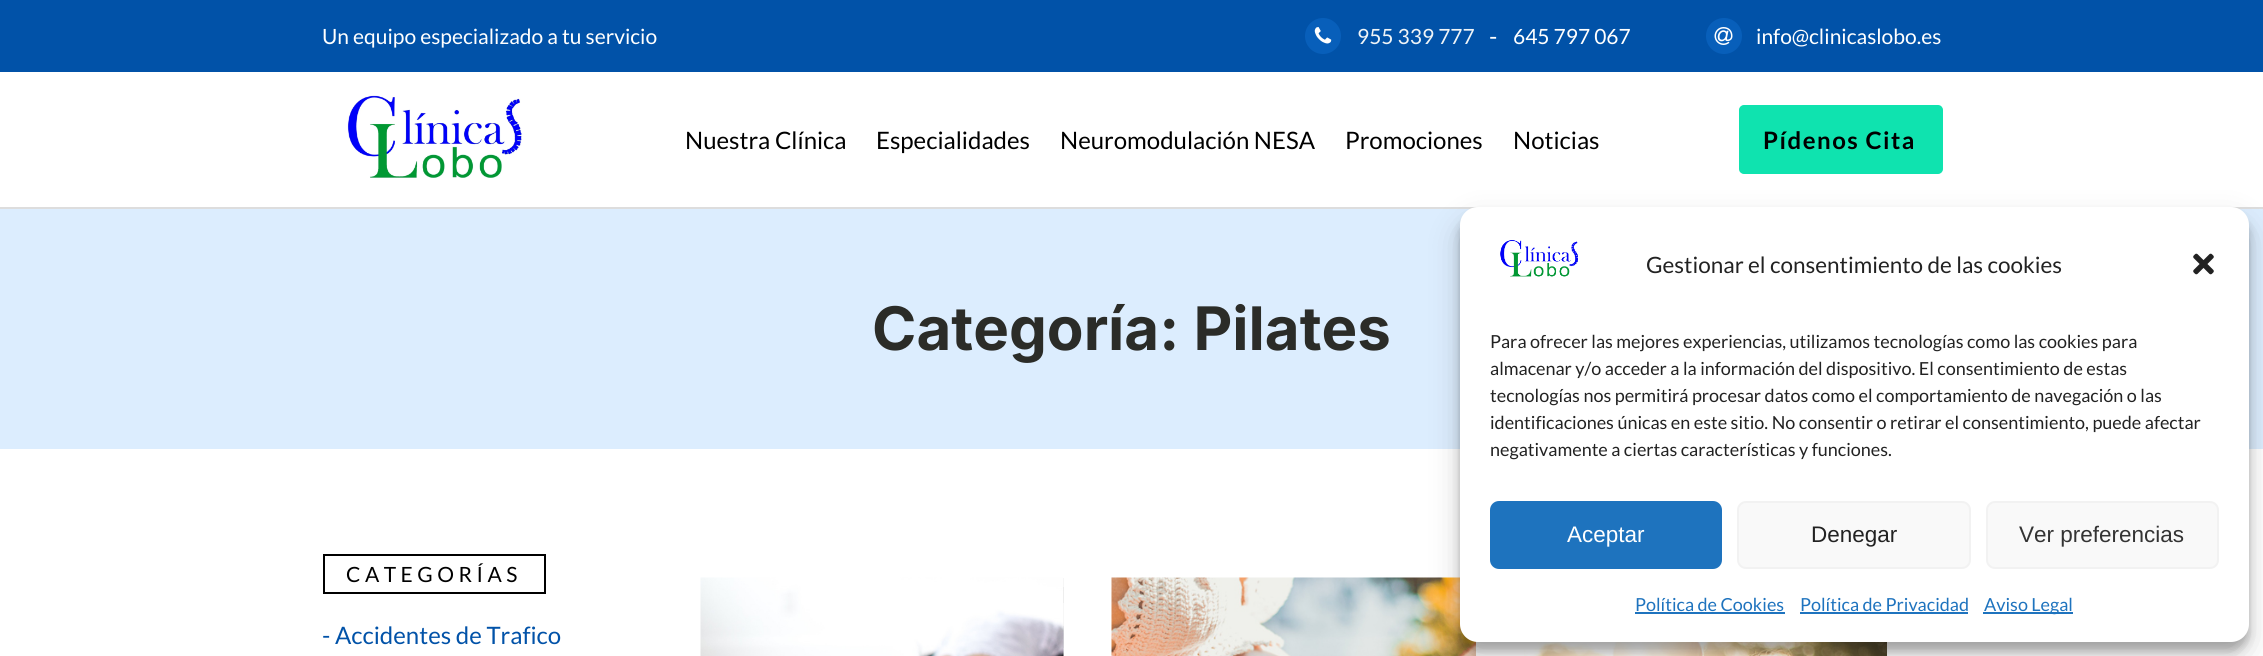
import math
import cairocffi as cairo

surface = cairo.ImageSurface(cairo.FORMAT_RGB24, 2263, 656)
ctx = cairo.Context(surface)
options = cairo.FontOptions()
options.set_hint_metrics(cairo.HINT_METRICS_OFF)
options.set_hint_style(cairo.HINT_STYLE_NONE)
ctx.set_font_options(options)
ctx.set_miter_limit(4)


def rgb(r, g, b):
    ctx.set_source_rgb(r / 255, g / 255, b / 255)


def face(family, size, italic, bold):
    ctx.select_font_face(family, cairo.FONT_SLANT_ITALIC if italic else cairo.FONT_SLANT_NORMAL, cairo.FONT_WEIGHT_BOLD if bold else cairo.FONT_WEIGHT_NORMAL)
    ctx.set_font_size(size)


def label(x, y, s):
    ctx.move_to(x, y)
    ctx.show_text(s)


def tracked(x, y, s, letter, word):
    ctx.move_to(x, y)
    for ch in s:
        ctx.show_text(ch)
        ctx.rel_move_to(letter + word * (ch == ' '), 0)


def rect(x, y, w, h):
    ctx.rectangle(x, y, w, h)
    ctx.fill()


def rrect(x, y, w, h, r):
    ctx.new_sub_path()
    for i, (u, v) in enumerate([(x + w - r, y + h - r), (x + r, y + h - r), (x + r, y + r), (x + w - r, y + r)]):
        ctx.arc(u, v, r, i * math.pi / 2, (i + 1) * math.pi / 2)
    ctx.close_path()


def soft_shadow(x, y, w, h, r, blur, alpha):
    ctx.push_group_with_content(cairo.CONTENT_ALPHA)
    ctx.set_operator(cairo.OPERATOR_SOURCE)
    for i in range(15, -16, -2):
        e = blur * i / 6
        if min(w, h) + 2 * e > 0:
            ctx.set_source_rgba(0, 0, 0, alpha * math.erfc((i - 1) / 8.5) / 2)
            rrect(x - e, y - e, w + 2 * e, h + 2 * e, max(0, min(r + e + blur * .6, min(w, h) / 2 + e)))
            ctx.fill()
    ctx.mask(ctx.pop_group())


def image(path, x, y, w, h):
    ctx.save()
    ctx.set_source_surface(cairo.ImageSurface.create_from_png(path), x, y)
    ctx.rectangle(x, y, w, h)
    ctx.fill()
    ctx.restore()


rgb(255, 255, 255)
ctx.paint()
rgb(1, 82, 168)
rect(0, 0, 2263, 72)
face('Lato', 21, 0, 0)
rgb(255, 255, 255)
label(322, 44, 'Un equipo especializado a tu servicio')
rgb(8, 95, 186)
ctx.new_path()
ctx.arc(1323, 36, 17, 0, 2 * math.pi)
ctx.fill_preserve()
ctx.stroke()
image('image0.png', 1314, 27, 18, 17)
rgb(239, 244, 247)
label(1357, 44, '955 339 777')
face('Lato', 24, 0, 0)
rgb(255, 255, 255)
label(1489, 45, '-')
face('Lato', 21, 0, 0)
label(1513, 44, '645 797 067')
rgb(8, 95, 186)
ctx.new_path()
ctx.arc(1724, 36, 17, 0, 2 * math.pi)
ctx.fill_preserve()
ctx.stroke()
image('image1.png', 1714, 27, 19, 18)
rgb(255, 255, 255)
label(1756, 44, 'info@clinicaslobo.es')
rgb(221, 221, 221)
rect(0, 207, 2263, 2)
image('image2.png', 347, 95, 175, 83)
face('Lato', 24, 0, 0)
rgb(0, 0, 0)
label(685, 149, 'Nuestra Clínica')
label(876, 149, 'Especialidades')
label(1060, 149, 'Neuromodulación NESA')
label(1345, 149, 'Promociones')
label(1513, 149, 'Noticias')
rgb(15, 227, 175)
rrect(1740, 106, 202, 67, 4)
ctx.fill_preserve()
ctx.stroke()
face('Lato', 24, 0, 1)
rgb(0, 0, 0)
tracked(1763, 149, 'Pídenos Cita', 1.5, 0)
rgb(220, 237, 254)
rect(0, 209, 2263, 240)
face('Inter', 60, 0, 1)
rgb(43, 44, 40)
label(872, 350, 'Categoría: Pilates')
image('image6.png', 1111, 577, 365, 79)
image('image7.png', 1524, 642, 363, 14)
rgb(0, 0, 0)
soft_shadow(1460, 216, 789, 435, 18, 4.5, 0.23)
soft_shadow(1460, 222, 789, 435, 18, 15, 0.19)
rgb(255, 255, 255)
rrect(1460, 207, 789, 435, 18)
ctx.fill()
image('image3.png', 1500, 240, 78, 37)
face('Lato', 22.5, 0, 0)
rgb(34, 34, 34)
label(1646, 273, 'Gestionar el consentimiento de las cookies')
image('image4.png', 2193, 253, 21, 22)
face('Lato', 18, 0, 0)
label(1490, 348, 'Para ofrecer las mejores experiencias, utilizamos tecnologías como las cookies para')
label(1490, 375, 'almacenar y/o acceder a la información del dispositivo. El consentimiento de estas')
label(1490, 402, 'tecnologías nos permitirá procesar datos como el comportamiento de navegación o las')
label(1490, 429, 'identificaciones únicas en este sitio. No consentir o retirar el consentimiento, puede afectar')
label(1490, 456, 'negativamente a ciertas características y funciones.')
rgb(30, 115, 190)
rrect(1491, 502, 230, 66, 8)
ctx.fill_preserve()
ctx.stroke()
face('Liberation Sans', 22.5, 0, 0)
rgb(255, 255, 255)
label(1567, 542, 'Aceptar')
rgb(249, 249, 249)
rrect(1738, 502, 232, 66, 8)
ctx.fill_preserve()
rgb(242, 242, 242)
ctx.stroke()
rgb(34, 34, 34)
label(1811, 542, 'Denegar')
rgb(249, 249, 249)
rrect(1987, 502, 231, 66, 8)
ctx.fill_preserve()
rgb(242, 242, 242)
ctx.stroke()
rgb(51, 51, 51)
label(2019, 542, 'Ver preferencias')
face('Lato', 18, 0, 0)
rgb(30, 115, 190)
label(1635, 611, 'Política de Cookies')
rect(1635, 612, 150, 2)
label(1800, 611, 'Política de Privacidad')
rect(1800, 612, 168, 2)
rect(1983, 612, 90, 2)
label(1984, 611, 'Aviso Legal')
ctx.rectangle(324, 555, 221, 38)
rgb(0, 0, 0)
ctx.stroke()
face('Lato', 21, 0, 0)
tracked(346, 582, 'CATEGORÍAS', 4.5, 0)
face('Lato', 24, 0, 0)
rgb(1, 82, 168)
label(322, 644, '- Accidentes de Trafico')
gradient = cairo.LinearGradient(700, 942, 1082, 560)
gradient.add_color_stop_rgba(0, 0.933, 0.933, 0.933, 1)
gradient.add_color_stop_rgba(0.03, 0.933, 0.933, 0.933, 1)
gradient.add_color_stop_rgba(0.03, 0.867, 0.867, 0.867, 1)
gradient.add_color_stop_rgba(0.06, 0.867, 0.867, 0.867, 1)
gradient.add_color_stop_rgba(0.06, 0.933, 0.933, 0.933, 1)
gradient.add_color_stop_rgba(0.08, 0.933, 0.933, 0.933, 1)
gradient.add_color_stop_rgba(0.08, 0.867, 0.867, 0.867, 1)
gradient.add_color_stop_rgba(0.11, 0.867, 0.867, 0.867, 1)
gradient.add_color_stop_rgba(0.11, 0.933, 0.933, 0.933, 1)
gradient.add_color_stop_rgba(0.14, 0.933, 0.933, 0.933, 1)
gradient.add_color_stop_rgba(0.14, 0.867, 0.867, 0.867, 1)
gradient.add_color_stop_rgba(0.17, 0.867, 0.867, 0.867, 1)
gradient.add_color_stop_rgba(0.17, 0.933, 0.933, 0.933, 1)
gradient.add_color_stop_rgba(0.19, 0.933, 0.933, 0.933, 1)
gradient.add_color_stop_rgba(0.19, 0.867, 0.867, 0.867, 1)
gradient.add_color_stop_rgba(0.22, 0.867, 0.867, 0.867, 1)
gradient.add_color_stop_rgba(0.22, 0.933, 0.933, 0.933, 1)
gradient.add_color_stop_rgba(0.25, 0.933, 0.933, 0.933, 1)
gradient.add_color_stop_rgba(0.25, 0.867, 0.867, 0.867, 1)
gradient.add_color_stop_rgba(0.28, 0.867, 0.867, 0.867, 1)
gradient.add_color_stop_rgba(0.28, 0.933, 0.933, 0.933, 1)
gradient.add_color_stop_rgba(0.31, 0.933, 0.933, 0.933, 1)
gradient.add_color_stop_rgba(0.31, 0.867, 0.867, 0.867, 1)
gradient.add_color_stop_rgba(0.33, 0.867, 0.867, 0.867, 1)
gradient.add_color_stop_rgba(0.33, 0.933, 0.933, 0.933, 1)
gradient.add_color_stop_rgba(0.36, 0.933, 0.933, 0.933, 1)
gradient.add_color_stop_rgba(0.36, 0.867, 0.867, 0.867, 1)
gradient.add_color_stop_rgba(0.39, 0.867, 0.867, 0.867, 1)
gradient.add_color_stop_rgba(0.39, 0.933, 0.933, 0.933, 1)
gradient.add_color_stop_rgba(0.42, 0.933, 0.933, 0.933, 1)
gradient.add_color_stop_rgba(0.42, 0.867, 0.867, 0.867, 1)
gradient.add_color_stop_rgba(0.44, 0.867, 0.867, 0.867, 1)
gradient.add_color_stop_rgba(0.44, 0.933, 0.933, 0.933, 1)
gradient.add_color_stop_rgba(0.47, 0.933, 0.933, 0.933, 1)
gradient.add_color_stop_rgba(0.47, 0.867, 0.867, 0.867, 1)
gradient.add_color_stop_rgba(0.5, 0.867, 0.867, 0.867, 1)
gradient.add_color_stop_rgba(0.5, 0.933, 0.933, 0.933, 1)
gradient.add_color_stop_rgba(0.53, 0.933, 0.933, 0.933, 1)
gradient.add_color_stop_rgba(0.53, 0.867, 0.867, 0.867, 1)
gradient.add_color_stop_rgba(0.56, 0.867, 0.867, 0.867, 1)
gradient.add_color_stop_rgba(0.56, 0.933, 0.933, 0.933, 1)
gradient.add_color_stop_rgba(0.58, 0.933, 0.933, 0.933, 1)
gradient.add_color_stop_rgba(0.58, 0.867, 0.867, 0.867, 1)
gradient.add_color_stop_rgba(0.61, 0.867, 0.867, 0.867, 1)
gradient.add_color_stop_rgba(0.61, 0.933, 0.933, 0.933, 1)
gradient.add_color_stop_rgba(0.64, 0.933, 0.933, 0.933, 1)
gradient.add_color_stop_rgba(0.64, 0.867, 0.867, 0.867, 1)
gradient.add_color_stop_rgba(0.67, 0.867, 0.867, 0.867, 1)
gradient.add_color_stop_rgba(0.67, 0.933, 0.933, 0.933, 1)
gradient.add_color_stop_rgba(0.69, 0.933, 0.933, 0.933, 1)
gradient.add_color_stop_rgba(0.69, 0.867, 0.867, 0.867, 1)
gradient.add_color_stop_rgba(0.72, 0.867, 0.867, 0.867, 1)
gradient.add_color_stop_rgba(0.72, 0.933, 0.933, 0.933, 1)
gradient.add_color_stop_rgba(0.75, 0.933, 0.933, 0.933, 1)
gradient.add_color_stop_rgba(0.75, 0.867, 0.867, 0.867, 1)
gradient.add_color_stop_rgba(0.78, 0.867, 0.867, 0.867, 1)
gradient.add_color_stop_rgba(0.78, 0.933, 0.933, 0.933, 1)
gradient.add_color_stop_rgba(0.81, 0.933, 0.933, 0.933, 1)
gradient.add_color_stop_rgba(0.81, 0.867, 0.867, 0.867, 1)
gradient.add_color_stop_rgba(0.83, 0.867, 0.867, 0.867, 1)
gradient.add_color_stop_rgba(0.83, 0.933, 0.933, 0.933, 1)
gradient.add_color_stop_rgba(0.86, 0.933, 0.933, 0.933, 1)
gradient.add_color_stop_rgba(0.86, 0.867, 0.867, 0.867, 1)
gradient.add_color_stop_rgba(0.89, 0.867, 0.867, 0.867, 1)
gradient.add_color_stop_rgba(0.89, 0.933, 0.933, 0.933, 1)
gradient.add_color_stop_rgba(0.92, 0.933, 0.933, 0.933, 1)
gradient.add_color_stop_rgba(0.92, 0.867, 0.867, 0.867, 1)
gradient.add_color_stop_rgba(0.94, 0.867, 0.867, 0.867, 1)
gradient.add_color_stop_rgba(0.94, 0.933, 0.933, 0.933, 1)
gradient.add_color_stop_rgba(0.97, 0.933, 0.933, 0.933, 1)
gradient.add_color_stop_rgba(0.97, 0.867, 0.867, 0.867, 1)
gradient.add_color_stop_rgba(1, 0.867, 0.867, 0.867, 1)
ctx.set_source(gradient)
rect(1063, 578, 1, 78)
image('image5.png', 700, 577, 364, 79)
surface.write_to_png('render.png')
